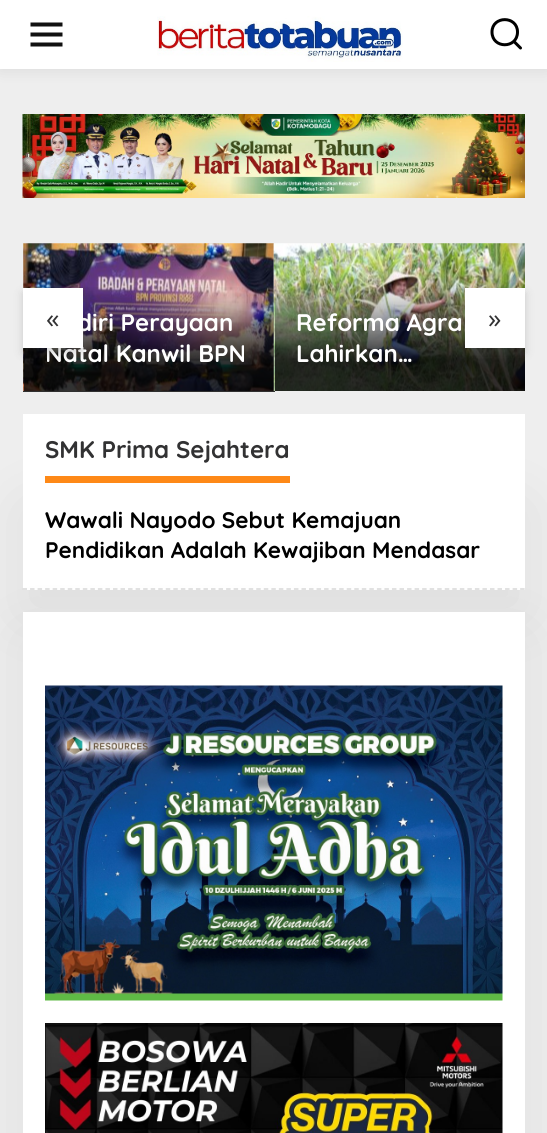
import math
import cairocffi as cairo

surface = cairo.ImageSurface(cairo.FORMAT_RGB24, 547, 1133)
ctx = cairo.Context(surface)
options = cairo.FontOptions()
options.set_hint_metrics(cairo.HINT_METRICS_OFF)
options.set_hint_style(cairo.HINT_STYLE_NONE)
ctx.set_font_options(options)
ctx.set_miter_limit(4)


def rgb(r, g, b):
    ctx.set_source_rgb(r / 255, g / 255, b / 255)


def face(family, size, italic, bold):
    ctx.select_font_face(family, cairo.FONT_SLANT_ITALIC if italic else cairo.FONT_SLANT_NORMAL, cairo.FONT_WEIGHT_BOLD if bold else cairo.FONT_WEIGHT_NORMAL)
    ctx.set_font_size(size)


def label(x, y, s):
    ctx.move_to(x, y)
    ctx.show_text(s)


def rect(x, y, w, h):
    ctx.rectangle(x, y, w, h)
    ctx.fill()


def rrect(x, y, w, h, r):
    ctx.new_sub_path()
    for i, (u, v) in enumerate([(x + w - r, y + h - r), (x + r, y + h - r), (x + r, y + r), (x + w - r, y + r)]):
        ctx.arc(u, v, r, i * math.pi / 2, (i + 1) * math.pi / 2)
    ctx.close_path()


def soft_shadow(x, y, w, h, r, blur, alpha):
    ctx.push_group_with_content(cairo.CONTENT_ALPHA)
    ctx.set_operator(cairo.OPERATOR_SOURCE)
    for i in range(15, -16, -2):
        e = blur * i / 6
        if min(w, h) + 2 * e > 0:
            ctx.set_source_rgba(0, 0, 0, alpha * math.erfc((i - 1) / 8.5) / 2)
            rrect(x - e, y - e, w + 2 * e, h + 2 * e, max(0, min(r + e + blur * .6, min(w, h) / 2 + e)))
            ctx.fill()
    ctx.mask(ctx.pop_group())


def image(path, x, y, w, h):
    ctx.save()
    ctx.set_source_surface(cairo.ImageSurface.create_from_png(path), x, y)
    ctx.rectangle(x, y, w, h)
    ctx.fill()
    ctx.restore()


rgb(238, 238, 238)
ctx.paint()
rgb(0, 0, 0)
soft_shadow(0, 0, 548, 69, 0, 7.5, 0.1)
rgb(255, 255, 255)
rect(0, 0, 547, 69)
rgb(17, 17, 17)
ctx.new_path()
ctx.move_to(30.5, 22.5)
ctx.line_to(62.5, 22.5)
ctx.line_to(62.5, 26.5)
ctx.line_to(30.5, 26.5)
ctx.close_path()
ctx.move_to(30.5, 32.5)
ctx.line_to(62.5, 32.5)
ctx.line_to(62.5, 36.5)
ctx.line_to(30.5, 36.5)
ctx.close_path()
ctx.move_to(30.5, 42.5)
ctx.line_to(62.5, 42.5)
ctx.line_to(62.5, 46.5)
ctx.line_to(30.5, 46.5)
ctx.close_path()
ctx.fill()
image('image0.png', 157, 16, 246, 46)
ctx.new_path()
ctx.move_to(520.5, 48)
ctx.line_to(514, 41.5)
ctx.move_to(517.5, 32)
ctx.curve_to(517.5, 49, 492, 49, 492, 32)
ctx.curve_to(492, 15.5, 517.5, 15.5, 517.5, 32)
ctx.close_path()
rgb(0, 0, 0)
ctx.set_line_width(3)
ctx.set_line_cap(cairo.LINE_CAP_ROUND)
ctx.stroke()
image('image1.png', 22, 114, 503, 84)
image('image2.png', 23, 243, 1, 148)
gradient = cairo.LinearGradient(-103, 285, -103, 392)
gradient.add_color_stop_rgba(0, 0, 0, 0, 0)
gradient.add_color_stop_rgba(0.7, 0, 0, 0, 0.8)
ctx.set_source(gradient)
rect(23, 285, 1, 107)
image('image3.png', 23, 243, 251, 148)
gradient = cairo.LinearGradient(149, 285, 149, 392)
gradient.add_color_stop_rgba(0, 0, 0, 0, 0)
gradient.add_color_stop_rgba(0.7, 0, 0, 0, 0.8)
ctx.set_source(gradient)
rect(24, 287, 251, 105)
face('Quicksand', 24, 0, 1)
rgb(255, 255, 255)
label(77, 331, 'diri Perayaan')
ctx.save()
ctx.rectangle(47, 308, 205, 61)
ctx.clip()
label(45, 362, 'Natal Kanwil BPN')
ctx.restore()
image('image4.png', 273, 243, 252, 148)
label(296, 331, 'Reforma Agra')
label(296, 362, 'Lahirkan…')
rgb(51, 51, 51)
soft_shadow(23, 293, 60, 60, 0, 4.5, 0.2)
rgb(255, 255, 255)
rect(23, 288, 60, 60)
face('Open Sans', 27, 0, 0)
rgb(50, 50, 51)
label(46, 328, '«')
rgb(51, 51, 51)
soft_shadow(465, 293, 60, 60, 0, 4.5, 0.2)
rgb(255, 255, 255)
rect(465, 288, 60, 60)
rgb(50, 50, 51)
label(488, 328, '»')
rgb(0, 0, 0)
soft_shadow(23, 507, 502, 107, 0, 34, 0.07)
rgb(255, 255, 255)
rect(23, 414, 502, 176)
rgb(254, 137, 23)
rect(45, 476, 245, 7)
face('Quicksand', 24, 0, 1)
rgb(50, 50, 51)
label(45, 458, 'SMK Prima Sejahtera')
ctx.new_path()
ctx.move_to(22.5, 589)
ctx.line_to(525, 589)
rgb(217, 217, 217)
ctx.set_line_width(1.5)
ctx.set_line_cap(cairo.LINE_CAP_BUTT)
ctx.set_dash([4.5, 3.04])
ctx.stroke()
face('Quicksand', 22.5, 0, 1)
rgb(0, 0, 0)
label(45, 528, 'Wawali Nayodo Sebut Kemajuan')
label(45, 558, 'Pendidikan Adalah Kewajiban Mendasar')
rgb(0, 0, 0)
soft_shadow(23, 636, 502, 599, 0, 34, 0.07)
rgb(255, 255, 255)
rect(23, 612, 502, 521)
image('image5.png', 45, 685, 458, 316)
image('image6.png', 45, 1023, 458, 110)
surface.write_to_png('render.png')
